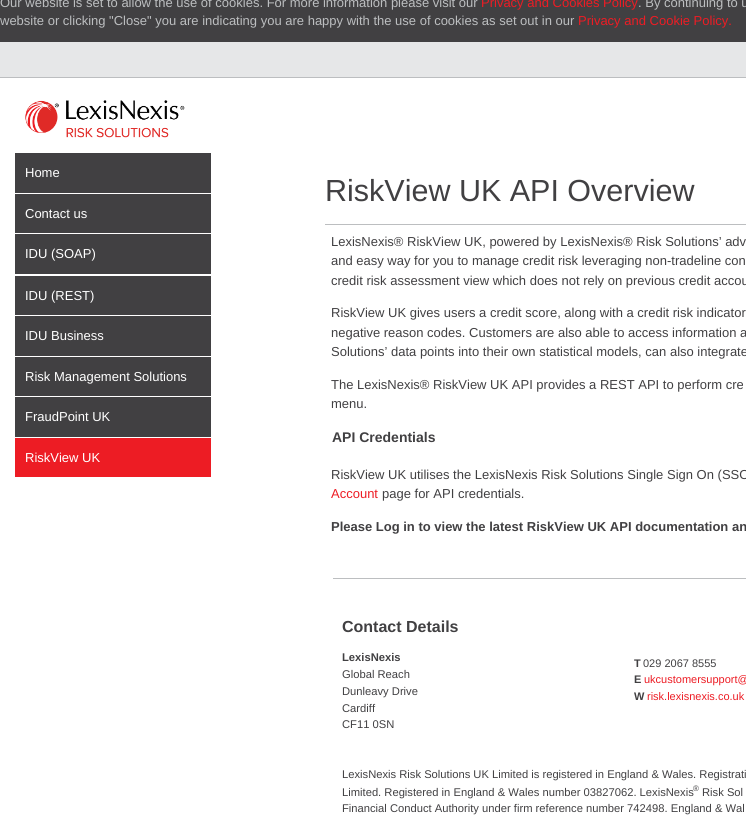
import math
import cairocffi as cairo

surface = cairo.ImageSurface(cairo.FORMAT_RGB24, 746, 818)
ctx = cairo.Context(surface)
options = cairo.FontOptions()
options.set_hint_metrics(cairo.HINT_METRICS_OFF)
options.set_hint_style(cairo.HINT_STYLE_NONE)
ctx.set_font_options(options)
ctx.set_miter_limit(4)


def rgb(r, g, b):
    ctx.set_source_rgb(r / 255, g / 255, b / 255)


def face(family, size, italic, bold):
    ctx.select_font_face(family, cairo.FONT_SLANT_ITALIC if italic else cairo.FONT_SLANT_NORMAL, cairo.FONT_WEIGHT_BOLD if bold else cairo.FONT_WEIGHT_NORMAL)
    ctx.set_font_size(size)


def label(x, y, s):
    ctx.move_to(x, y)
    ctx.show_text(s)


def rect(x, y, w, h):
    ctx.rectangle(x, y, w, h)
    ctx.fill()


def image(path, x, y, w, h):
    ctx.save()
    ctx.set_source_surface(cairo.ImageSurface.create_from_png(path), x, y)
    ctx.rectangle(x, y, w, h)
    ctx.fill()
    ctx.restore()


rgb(255, 255, 255)
ctx.paint()
rgb(65, 64, 66)
rect(0, 0, 746, 42)
face('Liberation Sans', 13, 0, 0)
rgb(188, 190, 192)
label(0, 7, 'Our website is set to allow the use of cookies. For more information please visit our')
rgb(237, 28, 36)
label(481, 7, 'Privacy and Cookies Policy')
rgb(188, 190, 192)
label(638, 7, '. By continuing to u')
label(0, 25, 'website or clicking "Close" you are indicating you are happy with the use of cookies as set out in our')
rgb(237, 28, 36)
label(578, 25, 'Privacy and Cookie Policy.')
rgb(230, 231, 232)
rect(0, 42, 746, 35)
rgb(188, 190, 192)
rect(0, 77, 746, 1)
image('image0.png', 25, 100, 160, 38)
rgb(65, 64, 66)
rect(15, 153, 196, 40)
rgb(255, 255, 255)
label(25, 177, 'Home')
rgb(65, 64, 66)
rect(15, 194, 196, 39)
rgb(255, 255, 255)
label(25, 218, 'Contact us')
rgb(65, 64, 66)
rect(15, 234, 196, 40)
rgb(255, 255, 255)
label(25, 258, 'IDU (SOAP)')
rgb(65, 64, 66)
rect(15, 276, 196, 39)
rgb(255, 255, 255)
label(25, 300, 'IDU (REST)')
rgb(65, 64, 66)
rect(15, 316, 196, 40)
rgb(255, 255, 255)
label(25, 340, 'IDU Business')
rgb(65, 64, 66)
rect(15, 357, 196, 39)
rgb(255, 255, 255)
label(25, 381, 'Risk Management Solutions')
rgb(65, 64, 66)
rect(15, 397, 196, 40)
rgb(255, 255, 255)
label(25, 421, 'FraudPoint UK')
rgb(237, 28, 36)
rect(15, 438, 196, 39)
rgb(255, 255, 255)
label(25, 462, 'RiskView UK')
face('Liberation Sans', 30.5, 0, 0)
rgb(65, 64, 66)
label(325, 201, 'RiskView UK API Overview')
rgb(188, 190, 192)
rect(325, 224, 421, 1)
face('Liberation Sans', 13, 0, 0)
rgb(65, 64, 66)
label(331, 246, 'LexisNexis® RiskView UK, powered by LexisNexis® Risk Solutions’ adv')
label(331, 265, 'and easy way for you to manage credit risk leveraging non-tradeline con')
label(331, 285, 'credit risk assessment view which does not rely on previous credit accou')
label(331, 317, 'RiskView UK gives users a credit score, along with a credit risk indicator')
label(331, 337, 'negative reason codes. Customers are also able to access information a')
label(331, 356, 'Solutions’ data points into their own statistical models, can also integrate')
label(331, 389, 'The LexisNexis® RiskView UK API provides a REST API to perform cre')
label(331, 408, 'menu.')
face('Liberation Sans', 14, 0, 1)
label(332, 442, 'API Credentials')
face('Liberation Sans', 13, 0, 0)
label(331, 479, 'RiskView UK utilises the LexisNexis Risk Solutions Single Sign On (SSO')
rgb(237, 28, 36)
label(331, 498, 'Account')
rgb(65, 64, 66)
label(382, 498, 'page for API credentials.')
face('Liberation Sans', 13, 0, 1)
label(331, 531, 'Please Log in to view the latest RiskView UK API documentation an')
rgb(188, 190, 192)
rect(333, 578, 413, 1)
face('Liberation Sans', 16, 0, 1)
rgb(65, 64, 66)
label(342, 632, 'Contact Details')
face('Liberation Sans', 11.2, 0, 1)
label(342, 661, 'LexisNexis')
face('Liberation Sans', 11.2, 0, 0)
label(342, 678, 'Global Reach')
label(342, 695, 'Dunleavy Drive')
label(342, 712, 'Cardiff')
label(342, 728, 'CF11 0SN')
face('Liberation Sans', 11, 0, 1)
label(634, 667, 'T')
face('Liberation Sans', 11, 0, 0)
label(643, 667, '029 2067 8555')
face('Liberation Sans', 11, 0, 1)
label(634, 683, 'E')
face('Liberation Sans', 11, 0, 0)
rgb(237, 28, 36)
label(644, 683, 'ukcustomersupport@')
face('Liberation Sans', 11, 0, 1)
rgb(65, 64, 66)
label(634, 700, 'W')
face('Liberation Sans', 11, 0, 0)
rgb(237, 28, 36)
label(647, 700, 'risk.lexisnexis.co.uk')
face('Liberation Sans', 11.2, 0, 0)
rgb(65, 64, 66)
label(342, 778, 'LexisNexis Risk Solutions UK Limited is registered in England & Wales. Registrati')
label(342, 796, 'Limited. Registered in England & Wales number 03827062. LexisNexis')
face('Liberation Sans', 8, 0, 0)
label(693, 791, '®')
face('Liberation Sans', 11.2, 0, 0)
label(702, 796, 'Risk Sol')
label(342, 812, 'Financial Conduct Authority under firm reference number 742498. England & Wal')
surface.write_to_png('render.png')
